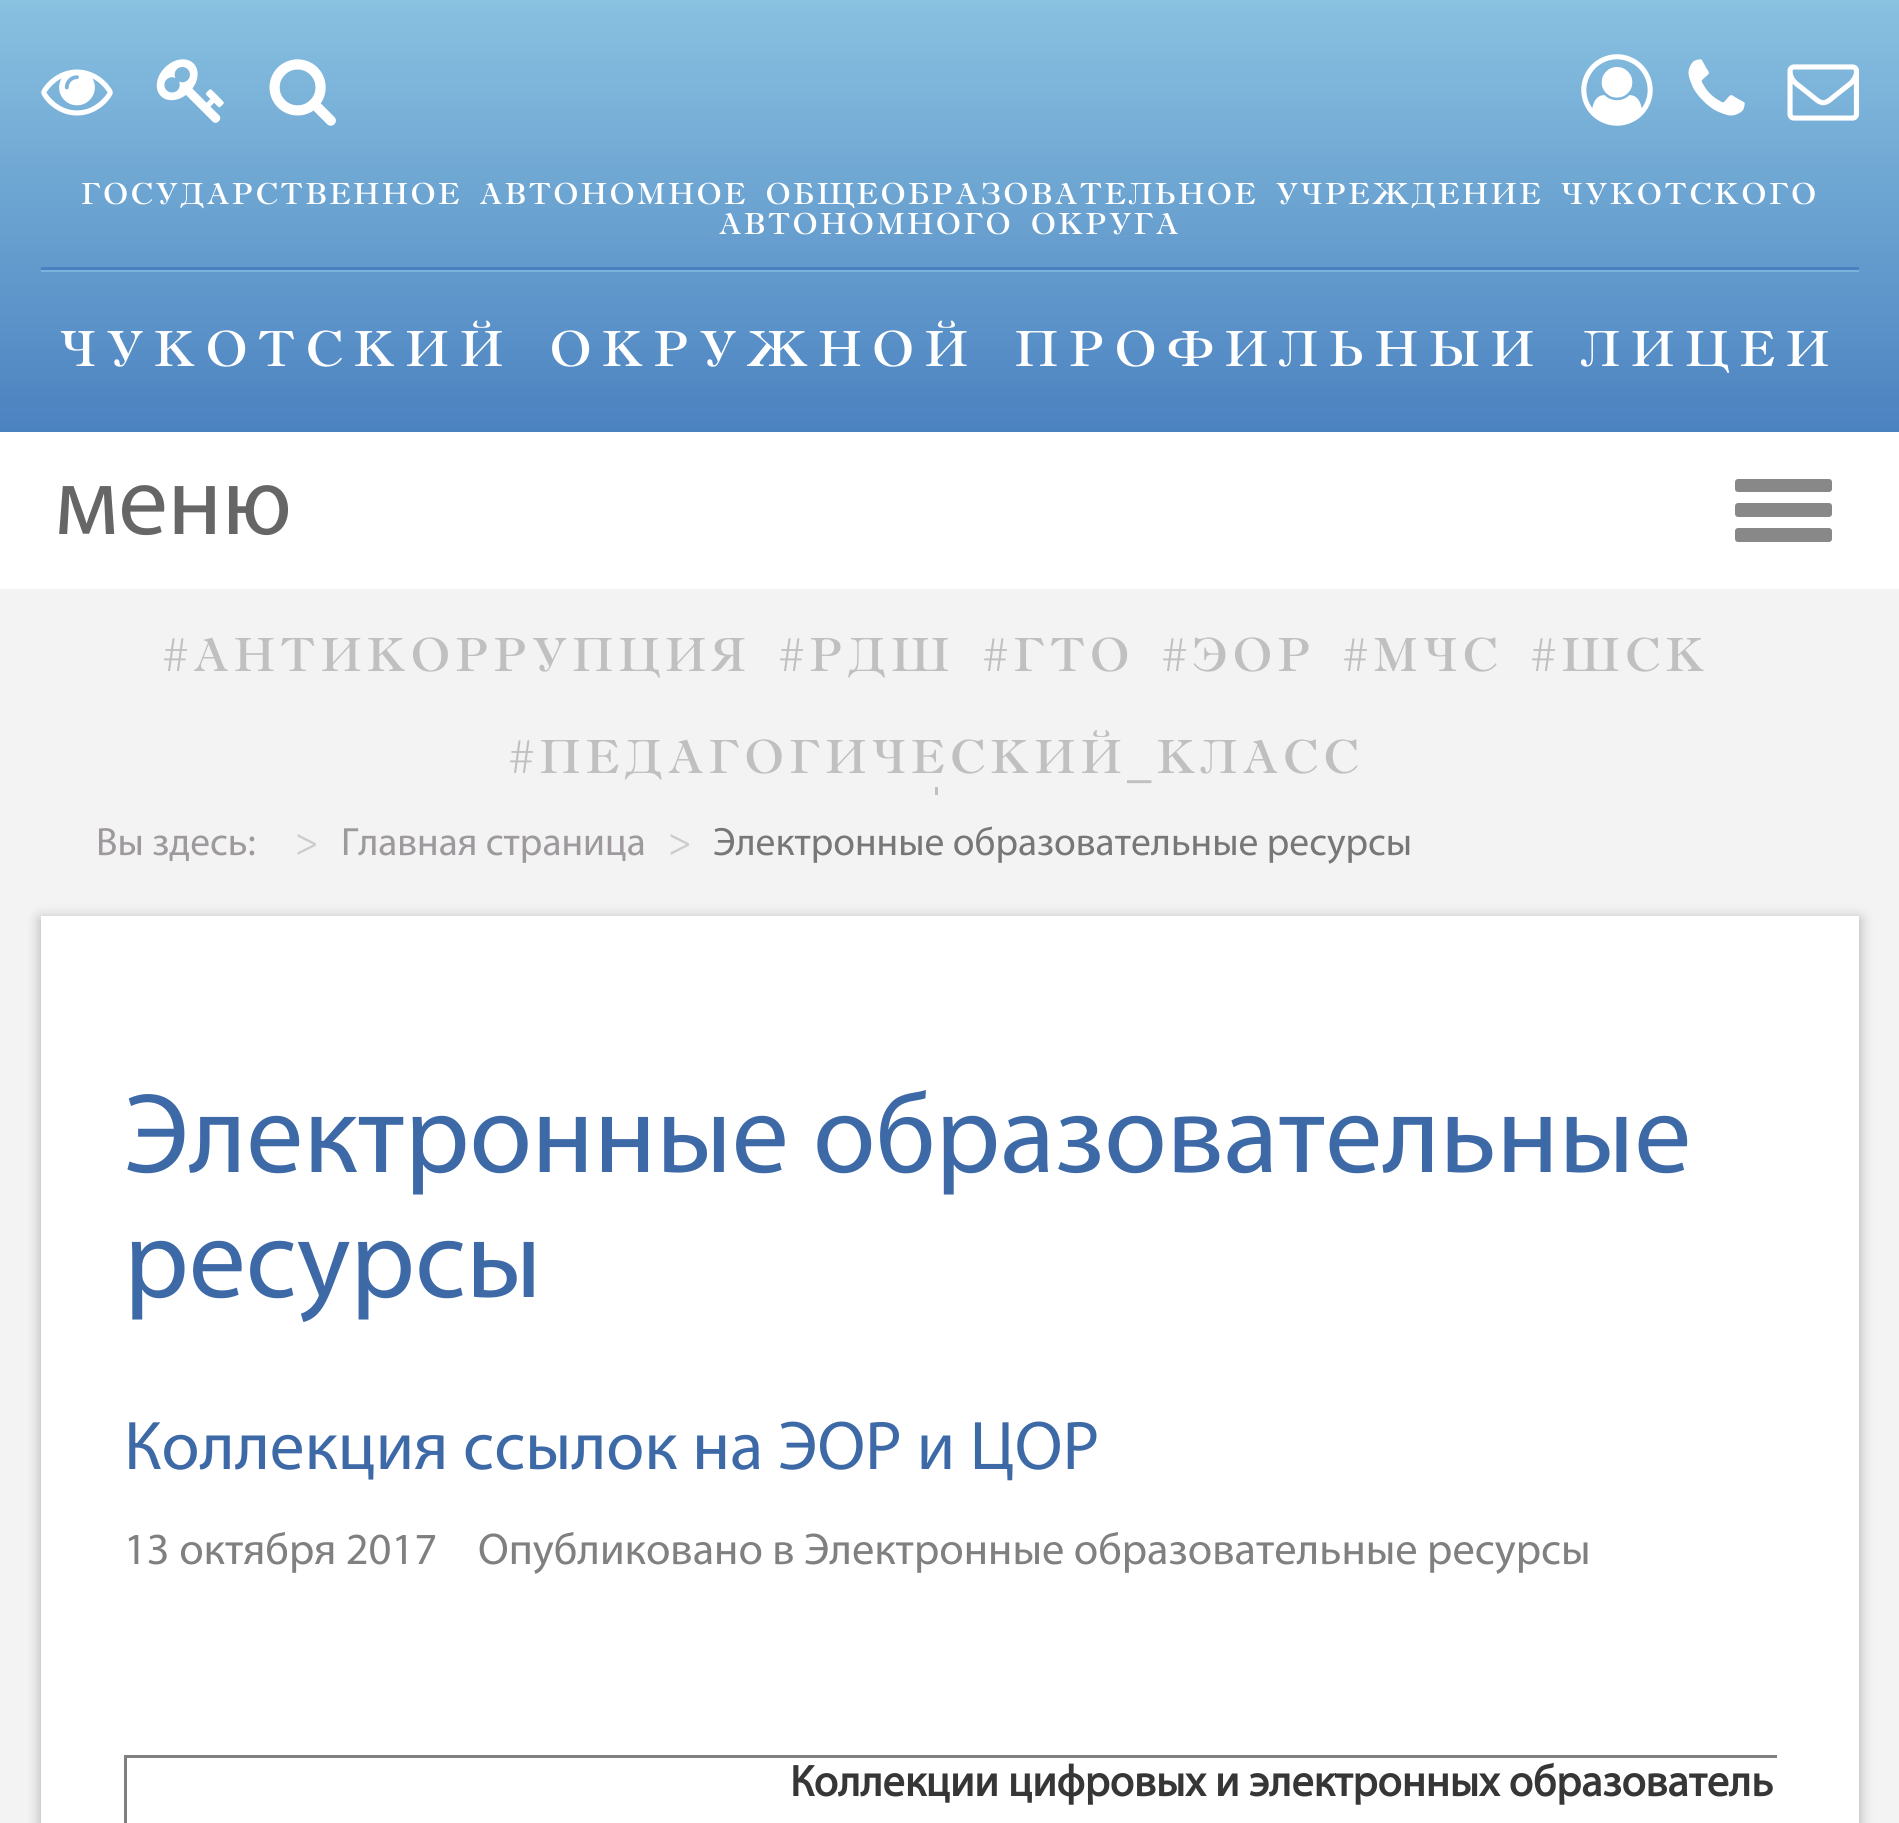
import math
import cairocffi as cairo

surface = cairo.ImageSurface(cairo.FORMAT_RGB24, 1899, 1823)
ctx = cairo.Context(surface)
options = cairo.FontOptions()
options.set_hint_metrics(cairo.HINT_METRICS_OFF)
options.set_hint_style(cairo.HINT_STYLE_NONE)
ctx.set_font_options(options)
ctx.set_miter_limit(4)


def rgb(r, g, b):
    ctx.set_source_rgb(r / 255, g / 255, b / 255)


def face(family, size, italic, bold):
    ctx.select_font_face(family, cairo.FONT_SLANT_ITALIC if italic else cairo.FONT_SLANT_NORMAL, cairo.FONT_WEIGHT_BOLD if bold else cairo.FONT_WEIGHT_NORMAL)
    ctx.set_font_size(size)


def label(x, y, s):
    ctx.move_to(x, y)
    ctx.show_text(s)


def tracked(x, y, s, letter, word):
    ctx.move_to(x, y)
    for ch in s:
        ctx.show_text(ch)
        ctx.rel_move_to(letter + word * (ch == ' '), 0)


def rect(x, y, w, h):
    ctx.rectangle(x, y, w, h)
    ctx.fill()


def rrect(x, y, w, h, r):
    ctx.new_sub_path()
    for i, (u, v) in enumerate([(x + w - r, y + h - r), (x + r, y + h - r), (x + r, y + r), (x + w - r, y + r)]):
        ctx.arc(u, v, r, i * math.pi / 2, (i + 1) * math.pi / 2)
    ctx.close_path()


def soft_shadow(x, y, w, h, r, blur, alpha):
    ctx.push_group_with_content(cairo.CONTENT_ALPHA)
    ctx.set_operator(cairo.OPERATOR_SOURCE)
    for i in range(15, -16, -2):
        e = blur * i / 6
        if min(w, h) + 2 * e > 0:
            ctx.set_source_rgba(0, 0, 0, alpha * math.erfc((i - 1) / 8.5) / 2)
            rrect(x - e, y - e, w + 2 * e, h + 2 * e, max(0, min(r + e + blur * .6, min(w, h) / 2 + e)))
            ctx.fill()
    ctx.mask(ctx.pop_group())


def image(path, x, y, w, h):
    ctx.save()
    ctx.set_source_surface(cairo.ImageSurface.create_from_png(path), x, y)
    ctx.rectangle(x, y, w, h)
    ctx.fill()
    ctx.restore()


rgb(243, 243, 243)
ctx.paint()
gradient = cairo.LinearGradient(950, 0, 950, 432)
gradient.add_color_stop_rgba(0, 0.537, 0.757, 0.882, 1)
gradient.add_color_stop_rgba(1, 0.294, 0.51, 0.753, 1)
ctx.set_source(gradient)
rect(0, 0, 1899, 432)
image('image0.png', 41, 69, 72, 47)
image('image1.png', 156, 59, 68, 64)
image('image2.png', 269, 59, 67, 67)
image('image3.png', 1581, 54, 72, 72)
image('image4.png', 1688, 59, 57, 57)
image('image5.png', 1787, 64, 72, 57)
face('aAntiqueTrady', 29.7, 0, 0)
rgb(255, 255, 255)
tracked(81, 204, 'ГОСУДАРСТВЕННОЕ АВТОНОМНОЕ ОБЩЕОБРАЗОВАТЕЛЬНОЕ УЧРЕЖДЕНИЕ ЧУКОТСКОГО', 2.75, 0)
tracked(719, 234, 'АВТОНОМНОГО ОКРУГА', 2.75, 0)
rgb(122, 179, 222)
ctx.new_path()
ctx.move_to(41, 242)
ctx.line_to(41, 272)
ctx.line_to(1859, 272)
ctx.line_to(1859, 270)
ctx.line_to(41, 270)
ctx.close_path()
ctx.fill()
rgb(74, 129, 192)
rect(41, 267, 1818, 3)
face('aAntiqueTrady', 49.5, 0, 0)
rgb(255, 255, 255)
tracked(60, 366, 'ЧУКОТСКИЙ ОКРУЖНОЙ ПРОФИЛЬНЫИ ЛИЦЕИ', 11, 0)
rect(0, 432, 1899, 157)
face('Myriad', 99, 0, 0)
rgb(102, 102, 102)
label(55, 534, 'меню')
rgb(136, 136, 136)
rrect(1735, 479, 97, 13, 3)
ctx.fill()
rrect(1735, 503, 97, 14, 3)
ctx.fill()
rrect(1735, 528, 97, 14, 3)
ctx.fill()
face('aAntiqueTrady', 46.75, 0, 0)
rgb(192, 192, 192)
tracked(163, 671, '#АНТИКОРРУПЦИЯ', 5.5, 0)
tracked(779, 671, '#РДШ', 5.5, 0)
tracked(983, 671, '#ГТО', 5.5, 0)
tracked(1162, 671, '#ЭОР', 5.5, 0)
tracked(1343, 671, '#МЧС', 5.5, 0)
tracked(1531, 671, '#ШСК', 5.5, 0)
tracked(509, 773, '#ПЕДАГОГИЧЕСКИЙ_КЛАСС', 5.5, 0)
rect(935, 787, 3, 8)
face('Myriad', 39.6, 0, 0)
rgb(157, 153, 157)
label(96, 855, 'Вы здесь:')
rgb(204, 204, 204)
label(295, 855, '>')
rgb(157, 153, 157)
label(341, 855, 'Главная страница')
rgb(204, 204, 204)
label(668, 855, '>')
rgb(119, 119, 119)
label(713, 855, 'Электронные образовательные ресурсы')
rgb(0, 0, 0)
soft_shadow(41, 919, 1818, 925, 0, 7, 0.3)
rgb(255, 255, 255)
rect(41, 916, 1818, 907)
face('Myriad', 113.8, 0, 0)
rgb(61, 106, 167)
label(124, 1172, 'Электронные образовательные')
label(124, 1297, 'ресурсы')
face('Myriad', 69.25, 0, 0)
label(124, 1469, 'Коллекция ссылок на ЭОР и ЦОР')
face('Myriad', 44.55, 0, 0)
rgb(128, 128, 128)
label(124, 1564, '13 октября 2017')
label(478, 1564, 'Опубликовано в Электронные образовательные ресурсы')
rect(124, 1755, 1653, 3)
rect(124, 1755, 3, 68)
face('Myriad', 44, 0, 1)
rgb(54, 54, 54)
label(790, 1796, 'Коллекции цифровых и электронных образователь')
surface.write_to_png('render.png')
